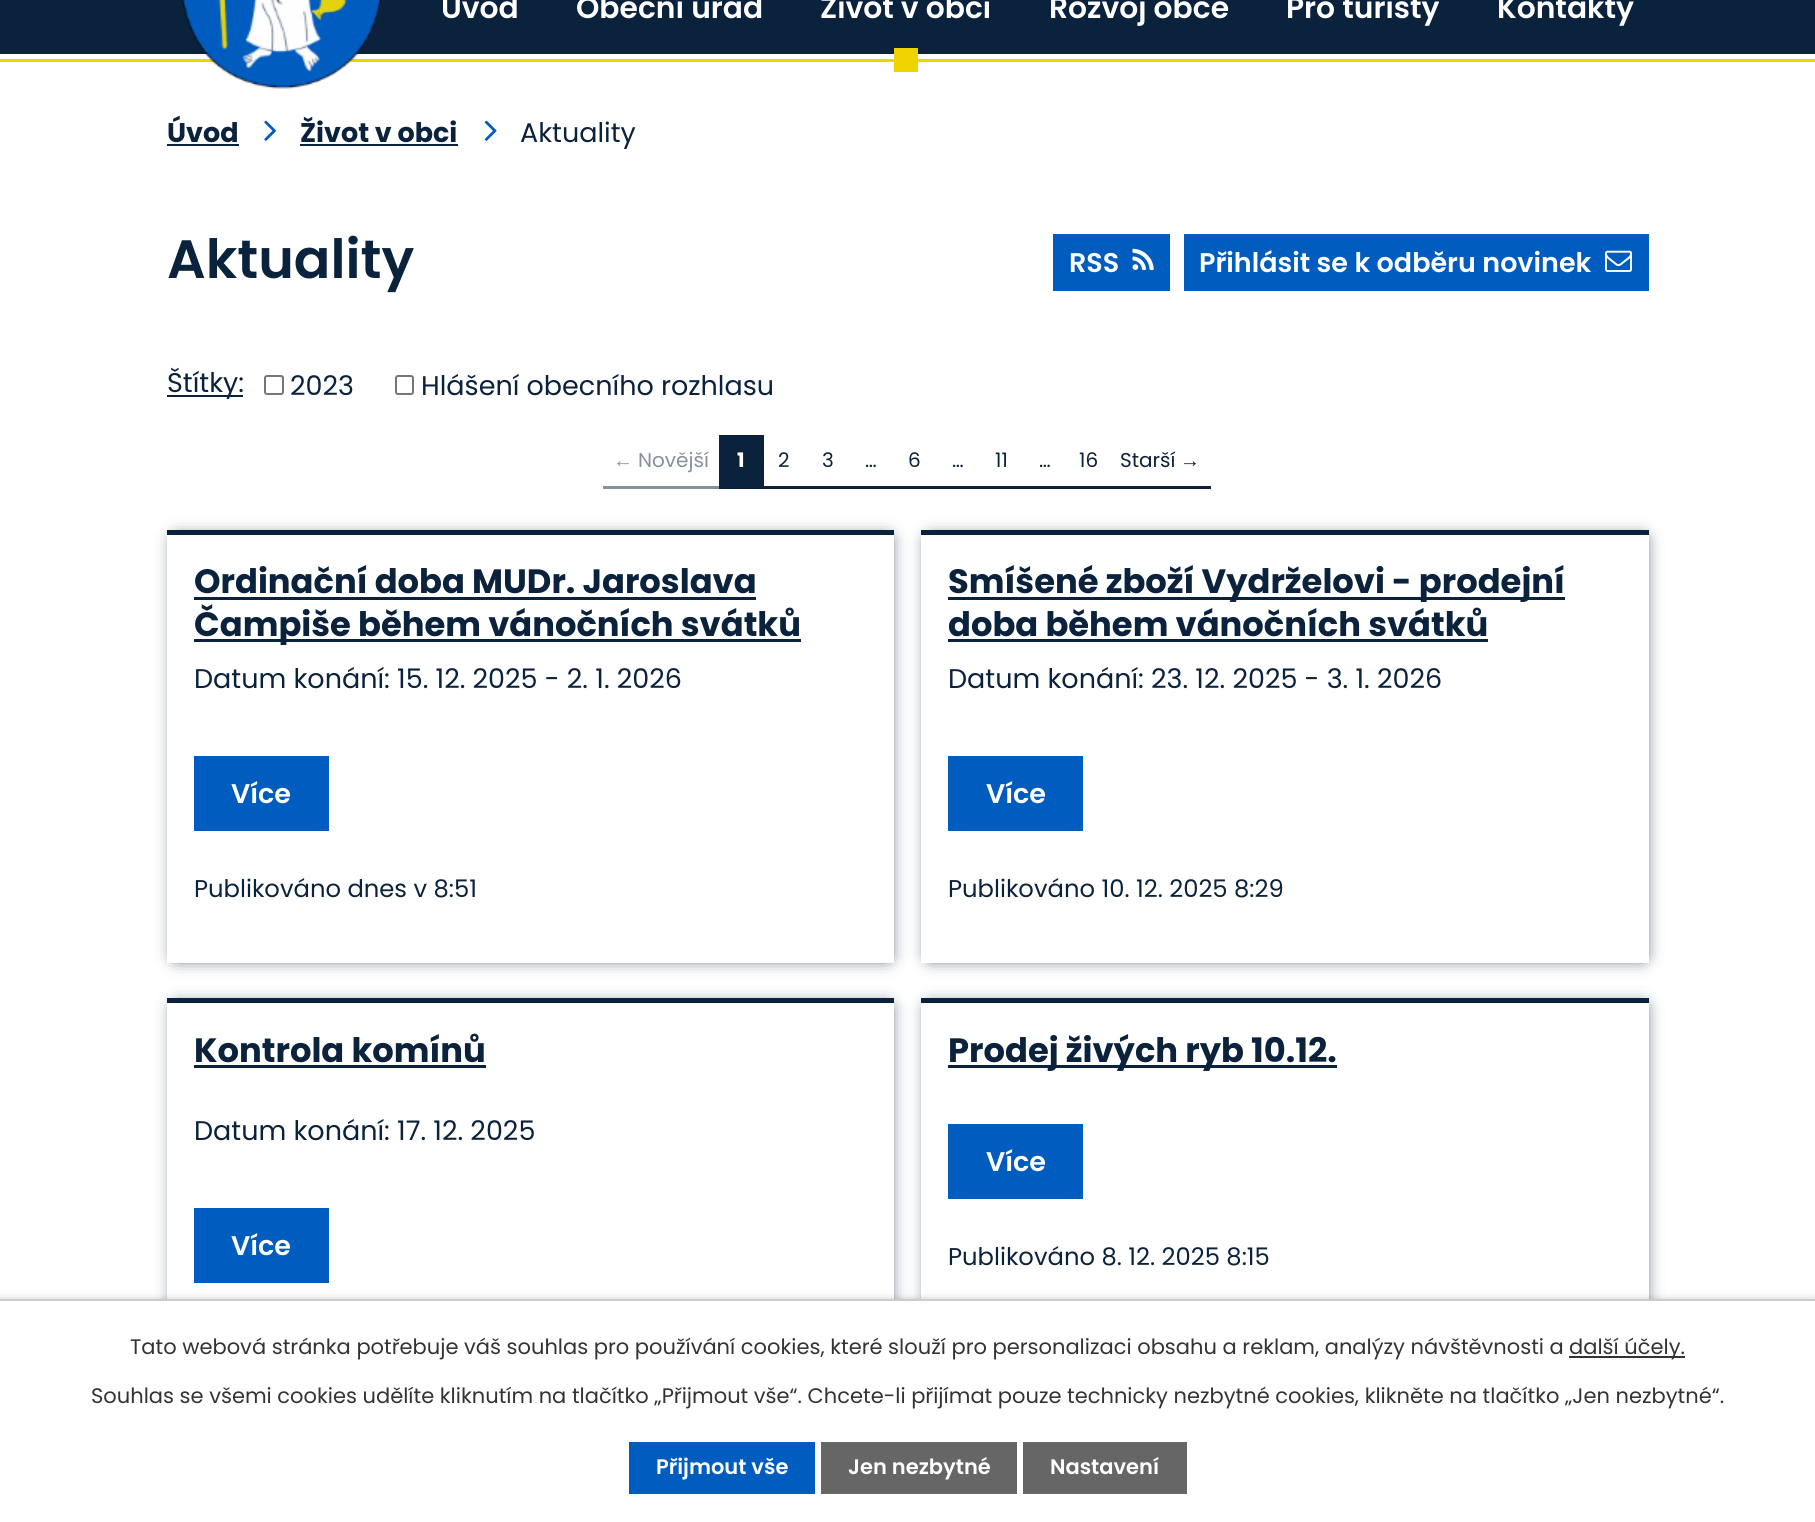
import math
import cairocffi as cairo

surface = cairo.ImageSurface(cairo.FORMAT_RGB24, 1815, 1522)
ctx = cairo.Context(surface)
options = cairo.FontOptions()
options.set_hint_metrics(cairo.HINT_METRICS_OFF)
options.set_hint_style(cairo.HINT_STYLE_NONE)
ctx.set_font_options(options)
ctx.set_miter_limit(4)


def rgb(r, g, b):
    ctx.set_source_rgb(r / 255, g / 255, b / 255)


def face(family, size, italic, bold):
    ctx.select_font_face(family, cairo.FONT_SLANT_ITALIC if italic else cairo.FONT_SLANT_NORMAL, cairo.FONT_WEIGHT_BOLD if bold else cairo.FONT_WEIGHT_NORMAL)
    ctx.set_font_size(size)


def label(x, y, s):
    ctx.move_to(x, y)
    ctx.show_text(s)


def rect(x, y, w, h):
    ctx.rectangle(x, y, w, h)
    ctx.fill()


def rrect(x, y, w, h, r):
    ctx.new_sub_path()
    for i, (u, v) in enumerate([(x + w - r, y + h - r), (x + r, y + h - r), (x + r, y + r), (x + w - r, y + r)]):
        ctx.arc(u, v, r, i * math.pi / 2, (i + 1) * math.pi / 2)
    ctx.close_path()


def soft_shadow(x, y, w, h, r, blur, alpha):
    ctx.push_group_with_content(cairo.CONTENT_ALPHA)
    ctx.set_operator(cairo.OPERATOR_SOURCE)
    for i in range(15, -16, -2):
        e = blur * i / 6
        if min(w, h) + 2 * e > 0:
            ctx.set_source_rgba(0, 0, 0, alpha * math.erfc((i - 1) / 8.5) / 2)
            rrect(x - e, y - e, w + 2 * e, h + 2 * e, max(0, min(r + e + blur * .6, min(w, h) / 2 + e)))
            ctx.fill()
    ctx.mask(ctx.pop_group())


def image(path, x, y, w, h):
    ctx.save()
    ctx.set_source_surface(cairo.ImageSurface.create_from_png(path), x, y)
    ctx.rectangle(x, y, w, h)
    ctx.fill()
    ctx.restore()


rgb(255, 255, 255)
ctx.paint()
rgb(10, 34, 60)
rect(0, 0, 1815, 54)
rgb(239, 211, 0)
rect(894, 48, 24, 24)
rect(0, 59, 1815, 3)
image('image0.png', 181, 0, 201, 89)
face('Poppins SemiBold', 29.75, 0, 0)
rgb(255, 255, 255)
label(441, 18, 'Úvod')
label(576, 18, 'Obecní úřad')
label(820, 18, 'Život v obci')
label(1049, 18, 'Rozvoj obce')
label(1286, 18, 'Pro turisty')
label(1497, 18, 'Kontakty')
face('Poppins', 27, 0, 1)
rgb(10, 34, 60)
label(167, 142, 'Úvod')
rect(167, 144, 72, 2)
image('image1.png', 264, 120, 13, 21)
label(300, 142, 'Život v obci')
rect(300, 144, 158, 2)
image('image2.png', 484, 120, 13, 21)
face('Poppins', 27, 0, 0)
label(520, 142, 'Aktuality')
face('Poppins SemiBold', 54, 0, 0)
label(167, 278, 'Aktuality')
rgb(0, 92, 190)
rect(1053, 234, 117, 57)
face('Poppins SemiBold', 27, 0, 0)
rgb(255, 255, 255)
label(1069, 272, 'RSS')
image('image3.png', 1132, 248, 22, 22)
rgb(0, 92, 190)
rect(1184, 234, 465, 57)
rgb(255, 255, 255)
label(1199, 272, 'Přihlásit se k odběru novinek')
image('image4.png', 1605, 250, 27, 22)
rgb(10, 34, 60)
rect(167, 395, 76, 2)
face('Poppins', 27, 0, 0)
label(167, 392, 'Štítky:')
rrect(265, 376, 18, 18, 2)
rgb(118, 118, 118)
ctx.stroke()
rgb(10, 34, 60)
label(290, 395, '2023')
rrect(396, 376, 17, 18, 2)
rgb(118, 118, 118)
ctx.stroke()
rgb(10, 34, 60)
label(421, 395, 'Hlášení obecního rozhlasu')
rgb(133, 145, 158)
rect(603, 486, 117, 3)
face('Liberation Sans', 20, 0, 0)
label(613, 467, '←')
face('Poppins', 20, 0, 0)
label(638, 467, 'Novější')
rgb(10, 34, 60)
rect(719, 435, 45, 54)
face('Poppins', 20, 0, 1)
rgb(255, 255, 255)
label(737, 467, '1')
rgb(10, 34, 60)
rect(762, 486, 449, 3)
face('Poppins', 20, 0, 0)
label(778, 467, '2')
label(822, 467, '3')
label(865, 467, '…')
label(908, 467, '6')
label(952, 467, '…')
label(995, 467, '11')
label(1039, 467, '…')
label(1079, 467, '16')
label(1120, 467, 'Starší')
face('Liberation Sans', 20, 0, 0)
label(1180, 467, '→')
ctx.save()
ctx.set_fill_rule(cairo.FILL_RULE_EVEN_ODD)
ctx.new_path()
ctx.move_to(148, 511)
ctx.line_to(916, 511)
ctx.line_to(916, 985)
ctx.line_to(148, 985)
ctx.close_path()
ctx.move_to(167, 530)
ctx.line_to(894, 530)
ctx.line_to(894, 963)
ctx.line_to(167, 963)
ctx.close_path()
ctx.clip()
rgb(10, 34, 60)
soft_shadow(176, 539, 712, 418, 0, 9, 1)
ctx.restore()
rect(167, 530, 727, 5)
face('Poppins', 33.75, 0, 1)
label(194, 593, 'Ordinační doba MUDr. Jaroslava')
rect(194, 597, 562, 3)
rect(194, 639, 607, 3)
label(194, 636, 'Čampiše během vánočních svátků')
face('Poppins', 27, 0, 0)
label(194, 688, 'Datum konání: 15. 12. 2025 - 2. 1. 2026')
rgb(0, 92, 190)
rect(194, 756, 135, 75)
face('Poppins SemiBold', 27, 0, 0)
rgb(255, 255, 255)
label(231, 803, 'Více')
face('Poppins', 24.25, 0, 0)
rgb(10, 34, 60)
label(194, 897, 'Publikováno dnes v 8:51')
rgb(10, 34, 60)
soft_shadow(930, 539, 713, 418, 0, 9, 1)
rgb(255, 255, 255)
rect(921, 535, 728, 428)
rgb(10, 34, 60)
rect(921, 530, 728, 5)
rect(948, 597, 617, 3)
face('Poppins', 33.75, 0, 1)
label(948, 593, 'Smíšené zboží Vydrželovi - prodejní')
label(948, 636, 'doba během vánočních svátků')
rect(948, 639, 540, 3)
face('Poppins', 27, 0, 0)
label(948, 688, 'Datum konání: 23. 12. 2025 - 3. 1. 2026')
rgb(0, 92, 190)
rect(948, 756, 135, 75)
face('Poppins SemiBold', 27, 0, 0)
rgb(255, 255, 255)
label(986, 803, 'Více')
face('Poppins', 24.25, 0, 0)
rgb(10, 34, 60)
label(948, 897, 'Publikováno 10. 12. 2025 8:29')
rgb(10, 34, 60)
soft_shadow(176, 1007, 712, 402, 0, 9, 1)
rgb(255, 255, 255)
rect(167, 1003, 727, 296)
rgb(10, 34, 60)
rect(167, 998, 727, 5)
face('Poppins', 33.75, 0, 1)
label(194, 1062, 'Kontrola komínů')
rect(194, 1065, 292, 3)
face('Poppins', 27, 0, 0)
label(194, 1140, 'Datum konání: 17. 12. 2025')
rgb(0, 92, 190)
rect(194, 1208, 135, 75)
face('Poppins SemiBold', 27, 0, 0)
rgb(255, 255, 255)
label(231, 1255, 'Více')
rgb(10, 34, 60)
soft_shadow(930, 1007, 713, 402, 0, 9, 1)
rgb(255, 255, 255)
rect(921, 1003, 728, 296)
rgb(10, 34, 60)
rect(921, 998, 728, 5)
rect(948, 1065, 389, 3)
face('Poppins', 33.75, 0, 1)
label(948, 1062, 'Prodej živých ryb 10.12.')
rgb(0, 92, 190)
rect(948, 1124, 135, 75)
face('Poppins SemiBold', 27, 0, 0)
rgb(255, 255, 255)
label(986, 1171, 'Více')
face('Poppins', 24.25, 0, 0)
rgb(10, 34, 60)
label(948, 1265, 'Publikováno 8. 12. 2025 8:15')
rgb(0, 0, 0)
soft_shadow(0, 1299, 1815, 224, 0, 4, 0.2)
rgb(255, 255, 255)
rect(0, 1301, 1815, 221)
rgb(204, 204, 204)
rect(0, 1299, 1815, 2)
face('Poppins', 21, 0, 0)
rgb(51, 51, 51)
label(130, 1354, 'Tato webová stránka potřebuje váš souhlas pro používání cookies, které slouží pro personalizaci obsahu a reklam, analýzy návštěvnosti a')
rect(1569, 1356, 116, 2)
label(1569, 1354, 'další účely.')
label(91, 1403, 'Souhlas se všemi cookies udělíte kliknutím na tlačítko „Přijmout vše“. Chcete-li přijímat pouze technicky nezbytné cookies, klikněte na tlačítko „Jen nezbytné“.')
rgb(0, 92, 190)
rect(629, 1442, 186, 52)
face('Poppins SemiBold', 21, 0, 0)
rgb(255, 255, 255)
label(656, 1474, 'Přijmout vše')
rgb(102, 102, 102)
rect(821, 1442, 196, 52)
rgb(255, 255, 255)
label(848, 1474, 'Jen nezbytné')
rgb(102, 102, 102)
rect(1023, 1442, 164, 52)
rgb(255, 255, 255)
label(1050, 1474, 'Nastavení')
surface.write_to_png('render.png')
